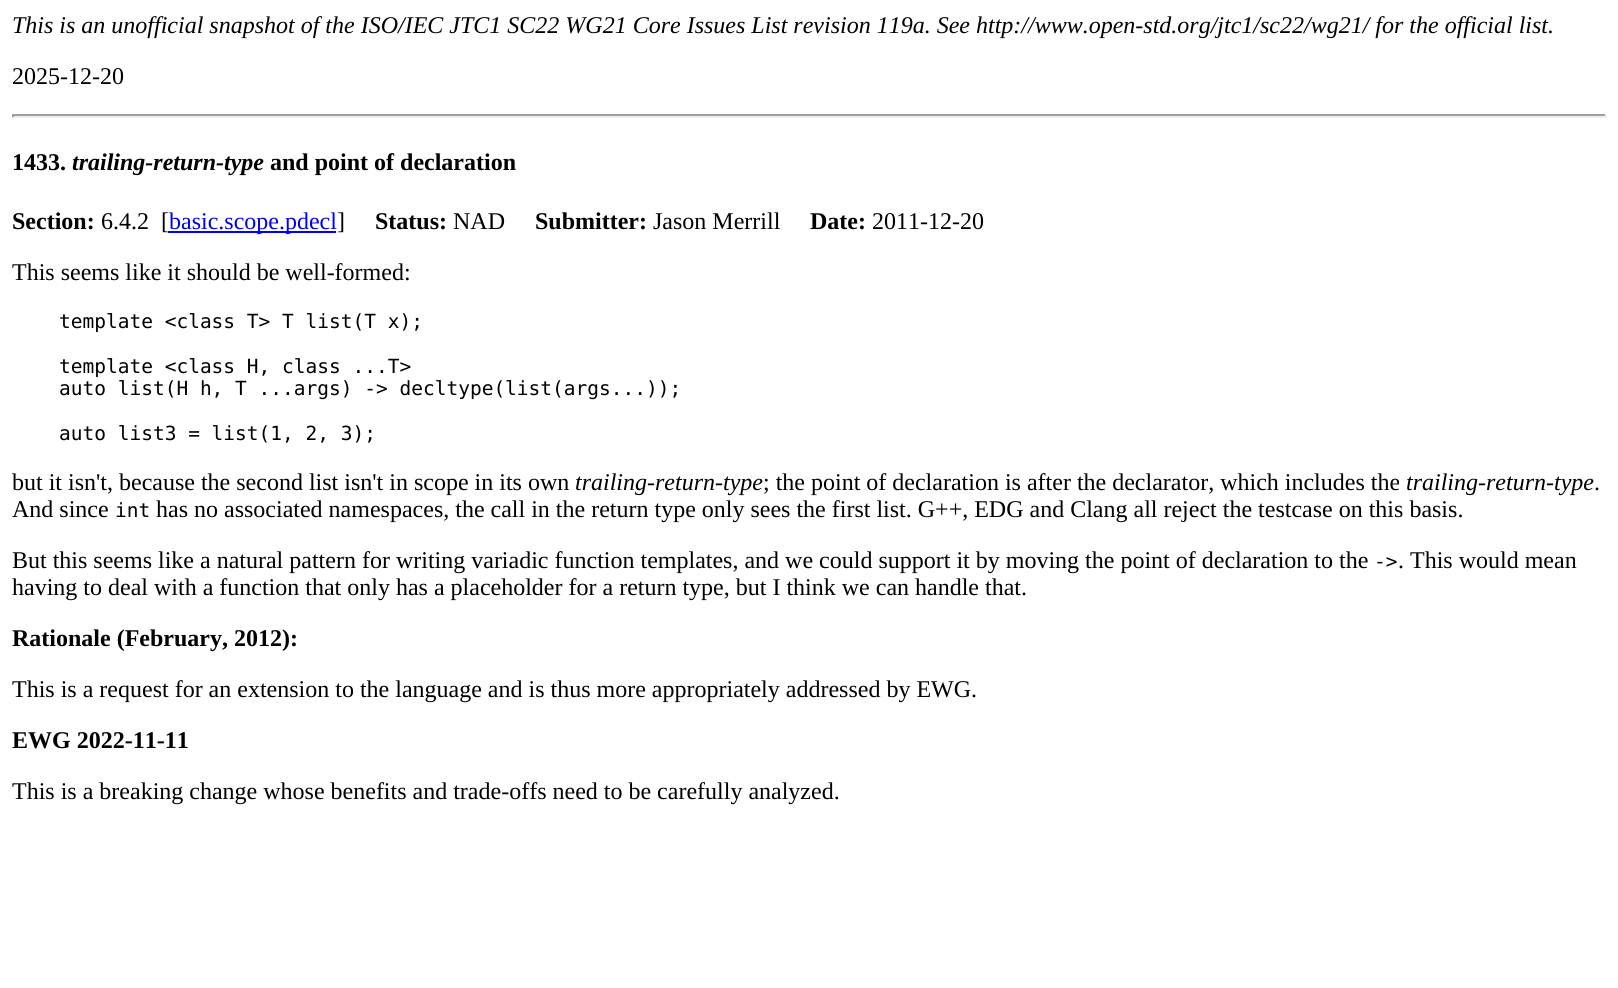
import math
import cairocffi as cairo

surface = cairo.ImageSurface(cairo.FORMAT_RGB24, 1618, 988)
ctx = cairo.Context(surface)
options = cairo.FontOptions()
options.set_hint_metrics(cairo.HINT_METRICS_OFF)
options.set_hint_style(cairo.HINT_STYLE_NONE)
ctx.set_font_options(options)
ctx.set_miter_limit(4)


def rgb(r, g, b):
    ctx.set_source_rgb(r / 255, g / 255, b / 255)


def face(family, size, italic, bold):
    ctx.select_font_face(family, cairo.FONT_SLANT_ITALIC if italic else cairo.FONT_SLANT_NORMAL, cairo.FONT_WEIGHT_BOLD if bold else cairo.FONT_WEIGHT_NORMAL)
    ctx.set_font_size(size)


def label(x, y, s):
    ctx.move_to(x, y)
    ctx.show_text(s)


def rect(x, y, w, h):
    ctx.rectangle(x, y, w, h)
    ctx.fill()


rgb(255, 255, 255)
ctx.paint()
face('Liberation Serif', 24, 1, 0)
rgb(0, 0, 0)
label(12, 33, 'This is an unofficial snapshot of the ISO/IEC JTC1 SC22 WG21 Core Issues List revision 119a. See http://www.open-std.org/jtc1/sc22/wg21/ for the official list.')
face('Liberation Serif', 24, 0, 0)
label(12, 84, '2025-12-20')
rgb(159, 159, 159)
rect(12, 114, 1595, 2)
rgb(238, 238, 238)
rect(1605, 114, 2, 3)
rect(12, 116, 1595, 2)
rgb(159, 159, 159)
rect(12, 114, 2, 3)
face('Liberation Serif', 24, 0, 1)
rgb(0, 0, 0)
label(12, 170, '1433.')
face('Liberation Serif', 24, 1, 1)
label(72, 170, 'trailing-return-type')
face('Liberation Serif', 24, 0, 1)
label(270, 170, 'and point of declaration')
label(12, 229, 'Section:')
face('Liberation Serif', 24, 0, 0)
label(101, 229, '6.4.2  [')
rgb(0, 0, 238)
rect(168, 231, 168, 2)
label(169, 229, 'basic.scope.pdecl')
rgb(0, 0, 0)
label(337, 229, ']')
face('Liberation Serif', 24, 0, 1)
label(375, 229, 'Status:')
face('Liberation Serif', 24, 0, 0)
label(453, 229, 'NAD')
face('Liberation Serif', 24, 0, 1)
label(535, 229, 'Submitter:')
face('Liberation Serif', 24, 0, 0)
label(653, 229, 'Jason Merrill')
face('Liberation Serif', 24, 0, 1)
label(810, 229, 'Date:')
face('Liberation Serif', 24, 0, 0)
label(872, 229, '2011-12-20')
label(12, 280, 'This seems like it should be well-formed:')
face('DejaVu Sans Mono', 19.5, 0, 0)
label(59, 328, 'template <class T> T list(T x);')
label(59, 373, 'template <class H, class ...T>')
label(59, 395, 'auto list(H h, T ...args) -> decltype(list(args...));')
label(59, 440, 'auto list3 = list(1, 2, 3);')
face('Liberation Serif', 24, 0, 0)
label(12, 490, 'but it isn\'t, because the second list isn\'t in scope in its own')
face('Liberation Serif', 24, 1, 0)
label(575, 490, 'trailing-return-type')
face('Liberation Serif', 24, 0, 0)
label(763, 490, '; the point of declaration is after the declarator, which includes the')
face('Liberation Serif', 24, 1, 0)
label(1406, 490, 'trailing-return-type')
face('Liberation Serif', 24, 0, 0)
label(1594, 490, '.')
label(12, 517, 'And since')
face('DejaVu Sans Mono', 19.5, 0, 0)
label(115, 517, 'int')
face('Liberation Serif', 24, 0, 0)
label(156, 517, 'has no associated namespaces, the call in the return type only sees the first list. G++, EDG and Clang all reject the testcase on this basis.')
label(12, 568, 'But this seems like a natural pattern for writing variadic function templates, and we could support it by moving the point of declaration to the')
face('DejaVu Sans Mono', 19.5, 0, 0)
label(1374, 568, '->')
face('Liberation Serif', 24, 0, 0)
label(1398, 568, '. This would mean')
label(12, 595, 'having to deal with a function that only has a placeholder for a return type, but I think we can handle that.')
face('Liberation Serif', 24, 0, 1)
label(12, 646, 'Rationale (February, 2012):')
face('Liberation Serif', 24, 0, 0)
label(12, 697, 'This is a request for an extension to the language and is thus more appropriately addressed by EWG.')
face('Liberation Serif', 24, 0, 1)
label(12, 748, 'EWG 2022-11-11')
face('Liberation Serif', 24, 0, 0)
label(12, 799, 'This is a breaking change whose benefits and trade-offs need to be carefully analyzed.')
surface.write_to_png('render.png')
